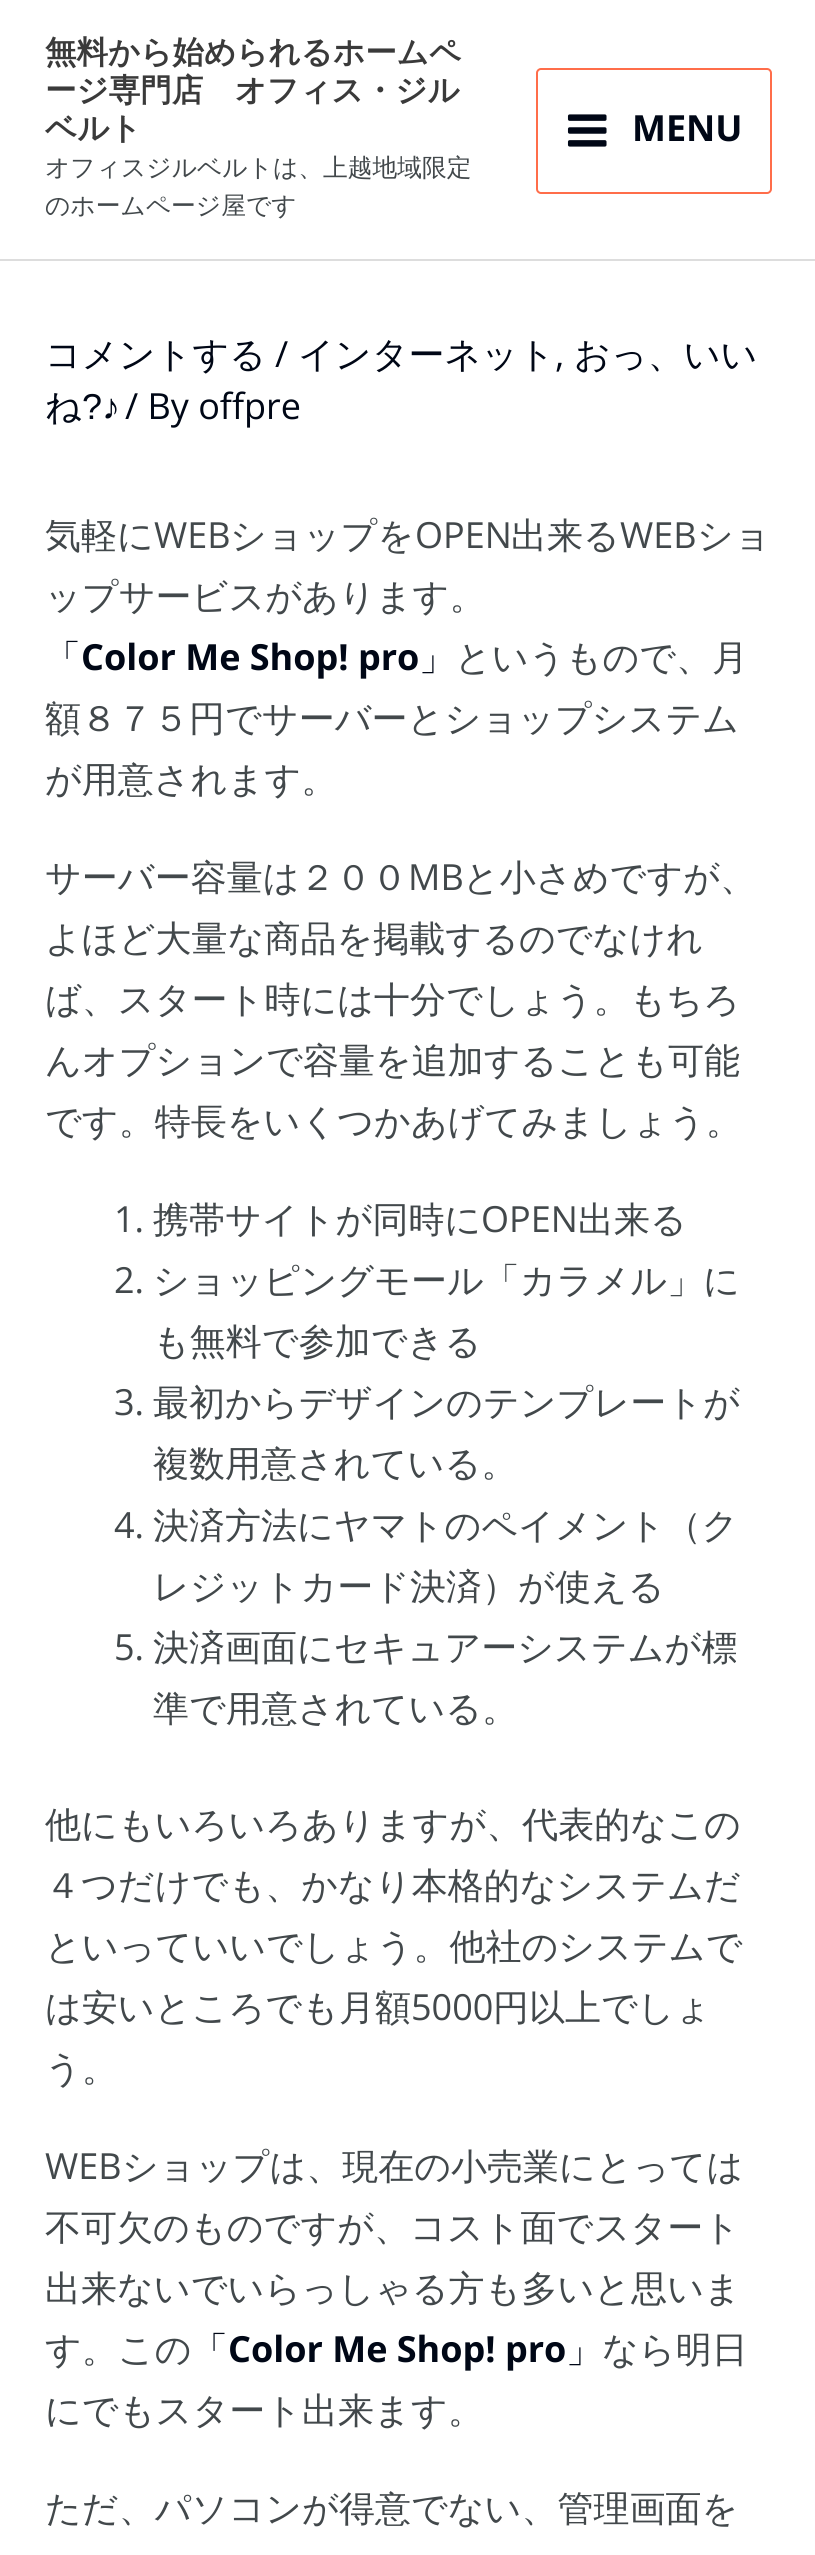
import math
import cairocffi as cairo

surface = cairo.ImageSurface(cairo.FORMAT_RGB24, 815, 2555)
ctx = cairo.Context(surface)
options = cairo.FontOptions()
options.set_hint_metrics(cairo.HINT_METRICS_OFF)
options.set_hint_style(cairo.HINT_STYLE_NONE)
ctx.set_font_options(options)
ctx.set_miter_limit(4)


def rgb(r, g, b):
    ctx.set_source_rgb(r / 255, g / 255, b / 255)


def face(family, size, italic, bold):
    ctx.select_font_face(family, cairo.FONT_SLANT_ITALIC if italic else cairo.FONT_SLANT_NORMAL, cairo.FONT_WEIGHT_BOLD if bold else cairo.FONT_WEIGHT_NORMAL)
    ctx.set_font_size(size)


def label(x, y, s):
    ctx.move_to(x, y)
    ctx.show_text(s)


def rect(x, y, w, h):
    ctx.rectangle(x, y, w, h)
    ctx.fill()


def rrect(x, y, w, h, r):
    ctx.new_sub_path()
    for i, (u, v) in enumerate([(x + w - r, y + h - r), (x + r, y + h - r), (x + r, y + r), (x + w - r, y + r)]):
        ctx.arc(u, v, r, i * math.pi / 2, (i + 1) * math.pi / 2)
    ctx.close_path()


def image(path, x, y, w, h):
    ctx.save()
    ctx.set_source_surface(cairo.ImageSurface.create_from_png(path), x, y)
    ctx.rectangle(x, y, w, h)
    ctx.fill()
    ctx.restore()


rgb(255, 255, 255)
ctx.paint()
rgb(221, 221, 221)
rect(0, 259, 815, 2)
face('WenQuanYi Zen Hei', 31.5, 0, 1)
rgb(58, 58, 58)
label(45, 63, '無料から始められるホームペ')
label(45, 101, 'ージ専門店　オフィス・ジル')
label(45, 139, 'ベルト')
face('WenQuanYi Zen Hei Medium', 24.75, 0, 0)
rgb(66, 72, 75)
label(45, 176, 'オフィスジルベルトは、上越地域限定')
label(45, 214, 'のホームページ屋です')
rrect(537, 69, 234, 124, 4)
rgb(255, 109, 74)
ctx.stroke()
image('image0.png', 567, 114, 40, 33)
face('Open Sans', 36, 0, 1)
rgb(0, 7, 22)
label(632, 141, 'MENU')
face('WenQuanYi Zen Hei Medium', 36, 0, 0)
label(45, 367, 'コメントする')
face('Open Sans', 36, 0, 0)
label(275, 367, '/')
face('WenQuanYi Zen Hei Medium', 36, 0, 0)
label(298, 367, 'インターネット')
face('Open Sans', 36, 0, 0)
label(555, 367, ',')
face('WenQuanYi Zen Hei Medium', 36, 0, 0)
label(574, 367, 'おっ、いい')
label(45, 419, 'ね')
face('Liberation Sans', 36, 0, 0)
label(82, 419, '?♪')
face('Open Sans', 36, 0, 0)
label(125, 419, '/ By offpre')
face('WenQuanYi Zen Hei Medium', 36, 0, 0)
rgb(66, 72, 75)
label(45, 548, '気軽に')
face('Open Sans', 36, 0, 0)
label(154, 548, 'WEB')
face('WenQuanYi Zen Hei Medium', 36, 0, 0)
label(230, 548, 'ショップを')
face('Open Sans', 36, 0, 0)
label(415, 548, 'OPEN')
face('WenQuanYi Zen Hei Medium', 36, 0, 0)
label(511, 548, '出来る')
face('Open Sans', 36, 0, 0)
label(620, 548, 'WEB')
face('WenQuanYi Zen Hei Medium', 36, 0, 0)
label(697, 548, 'ショ')
label(45, 609, 'ップサービスがあります。')
rgb(0, 7, 22)
label(45, 670, '「')
face('Open Sans', 36, 0, 1)
label(81, 670, 'Color Me Shop! pro')
face('WenQuanYi Zen Hei Medium', 36, 0, 0)
label(419, 670, '」')
rgb(66, 72, 75)
label(455, 670, 'というもので、月')
label(45, 731, '額８７５円でサーバーとショップシステム')
label(45, 792, 'が用意されます。')
label(45, 890, 'サーバー容量は２００')
face('Open Sans', 36, 0, 0)
label(408, 890, 'MB')
face('WenQuanYi Zen Hei Medium', 36, 0, 0)
label(463, 890, 'と小さめですが、')
label(45, 951, 'よほど大量な商品を掲載するのでなけれ')
label(45, 1012, 'ば、スタート時には十分でしょう。もちろ')
label(45, 1073, 'んオプションで容量を追加することも可能')
label(45, 1134, 'です。特長をいくつかあげてみましょう。')
face('Open Sans', 36, 0, 0)
label(114, 1232, '1.')
face('WenQuanYi Zen Hei Medium', 36, 0, 0)
label(153, 1232, '携帯サイトが同時に')
face('Open Sans', 36, 0, 0)
label(481, 1232, 'OPEN')
face('WenQuanYi Zen Hei Medium', 36, 0, 0)
label(578, 1232, '出来る')
face('Open Sans', 36, 0, 0)
label(114, 1293, '2.')
face('WenQuanYi Zen Hei Medium', 36, 0, 0)
label(153, 1293, 'ショッピングモール「カラメル」に')
label(153, 1354, 'も無料で参加できる')
face('Open Sans', 36, 0, 0)
label(114, 1415, '3.')
face('WenQuanYi Zen Hei Medium', 36, 0, 0)
label(153, 1415, '最初からデザインのテンプレートが')
label(153, 1476, '複数用意されている。')
face('Open Sans', 36, 0, 0)
label(114, 1538, '4.')
face('WenQuanYi Zen Hei Medium', 36, 0, 0)
label(153, 1538, '決済方法にヤマトのペイメント（ク')
label(153, 1599, 'レジットカード決済）が使える')
face('Open Sans', 36, 0, 0)
label(114, 1660, '5.')
face('WenQuanYi Zen Hei Medium', 36, 0, 0)
label(153, 1660, '決済画面にセキュアーシステムが標')
label(153, 1721, '準で用意されている。')
label(45, 1837, '他にもいろいろありますが、代表的なこの')
label(45, 1898, '４つだけでも、かなり本格的なシステムだ')
label(45, 1959, 'といっていいでしょう。他社のシステムで')
label(45, 2020, 'は安いところでも月額')
face('Open Sans', 36, 0, 0)
label(411, 2020, '5000')
face('WenQuanYi Zen Hei Medium', 36, 0, 0)
label(493, 2020, '円以上でしょ')
label(45, 2081, 'う。')
face('Open Sans', 36, 0, 0)
label(45, 2179, 'WEB')
face('WenQuanYi Zen Hei Medium', 36, 0, 0)
label(122, 2179, 'ショップは、現在の小売業にとっては')
label(45, 2240, '不可欠のものですが、コスト面でスタート')
label(45, 2301, '出来ないでいらっしゃる方も多いと思いま')
label(45, 2362, 'す。この')
rgb(0, 7, 22)
label(192, 2362, '「')
face('Open Sans', 36, 0, 1)
label(228, 2362, 'Color Me Shop! pro')
face('WenQuanYi Zen Hei Medium', 36, 0, 0)
label(566, 2362, '」')
rgb(66, 72, 75)
label(602, 2362, 'なら明日')
label(45, 2423, 'にでもスタート出来ます。')
label(45, 2521, 'ただ、パソコンが得意でない、管理画面を')
surface.write_to_png('render.png')
